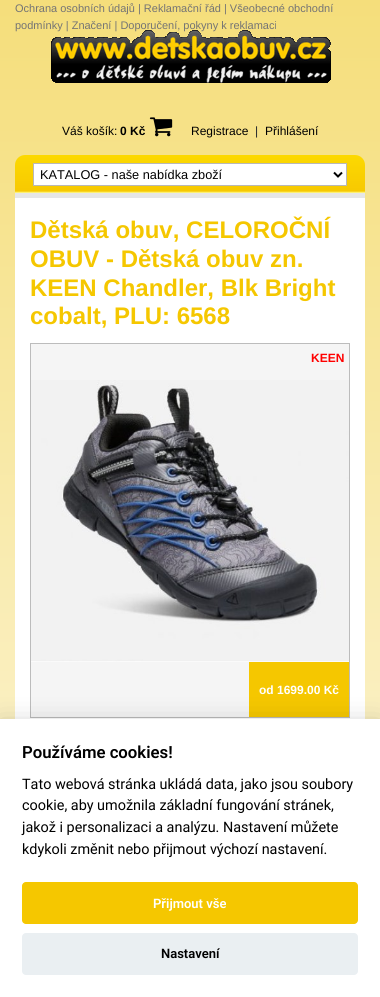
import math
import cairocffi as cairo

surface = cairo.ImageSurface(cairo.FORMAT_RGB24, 380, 997)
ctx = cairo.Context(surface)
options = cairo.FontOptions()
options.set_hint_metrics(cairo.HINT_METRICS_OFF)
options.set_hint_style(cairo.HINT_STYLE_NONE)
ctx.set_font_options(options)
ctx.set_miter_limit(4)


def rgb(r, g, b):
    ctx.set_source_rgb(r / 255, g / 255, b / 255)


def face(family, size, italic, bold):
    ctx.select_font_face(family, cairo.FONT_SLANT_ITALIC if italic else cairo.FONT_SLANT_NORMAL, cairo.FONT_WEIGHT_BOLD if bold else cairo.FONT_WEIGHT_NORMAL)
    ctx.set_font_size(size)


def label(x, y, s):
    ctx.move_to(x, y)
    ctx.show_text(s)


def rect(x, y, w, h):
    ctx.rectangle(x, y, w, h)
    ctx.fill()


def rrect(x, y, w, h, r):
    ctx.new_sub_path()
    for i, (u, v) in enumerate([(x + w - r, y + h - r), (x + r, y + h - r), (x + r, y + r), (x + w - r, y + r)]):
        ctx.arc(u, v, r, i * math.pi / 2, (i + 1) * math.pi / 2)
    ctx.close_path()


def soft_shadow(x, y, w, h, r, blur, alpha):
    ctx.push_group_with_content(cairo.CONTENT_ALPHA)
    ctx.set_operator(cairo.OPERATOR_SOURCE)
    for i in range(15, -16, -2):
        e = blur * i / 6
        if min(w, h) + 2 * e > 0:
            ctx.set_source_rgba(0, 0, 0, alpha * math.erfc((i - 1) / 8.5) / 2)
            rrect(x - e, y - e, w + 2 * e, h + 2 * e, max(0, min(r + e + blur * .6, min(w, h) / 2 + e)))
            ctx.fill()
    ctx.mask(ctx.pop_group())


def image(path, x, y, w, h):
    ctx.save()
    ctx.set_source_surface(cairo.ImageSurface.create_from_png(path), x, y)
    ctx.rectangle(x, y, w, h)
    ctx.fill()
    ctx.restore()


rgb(255, 255, 255)
ctx.paint()
gradient = cairo.LinearGradient(190, 0, 190, 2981)
gradient.add_color_stop_rgba(0, 0.961, 0.871, 0.482, 1)
gradient.add_color_stop_rgba(0.46, 1, 1, 1, 1)
ctx.set_source(gradient)
rect(0, 0, 380, 719)
face('Liberation Sans', 11, 0, 0)
rgb(116, 116, 116)
label(15, 12, 'Ochrana osobních údajů | Reklamační řád | Všeobecné obchodní')
image('image0.png', 51, 30, 280, 53)
label(15, 29, 'podmínky | Značení | Doporučení, pokyny k reklamaci')
face('Liberation Sans', 12, 0, 0)
rgb(0, 0, 0)
label(62, 135, 'Váš košík:')
face('Liberation Sans', 12, 0, 1)
label(120, 135, '0 Kč')
image('image1.png', 149, 117, 24, 20)
face('Liberation Sans', 12, 0, 0)
label(191, 135, 'Registrace')
rgb(33, 37, 41)
label(255, 135, '|')
rgb(0, 0, 0)
label(265, 135, 'Přihlášení')
gradient = cairo.LinearGradient(190, 155, 190, 193)
gradient.add_color_stop_rgba(0, 0.988, 0.851, 0.004, 1)
gradient.add_color_stop_rgba(0.95, 0.969, 0.788, 0.004, 1)
gradient.add_color_stop_rgba(1, 1, 1, 0.62, 1)
ctx.set_source(gradient)
ctx.new_path()
ctx.move_to(25, 155)
ctx.line_to(355, 155)
ctx.curve_to(360.5, 155, 365, 159.5, 365, 165)
ctx.line_to(365, 193)
ctx.line_to(15, 193)
ctx.line_to(15, 165)
ctx.curve_to(15, 159.5, 19.5, 155, 25, 155)
ctx.close_path()
ctx.fill()
rgb(255, 255, 255)
ctx.rectangle(33.5, 163.5, 313, 22)
ctx.fill_preserve()
rgb(184, 184, 184)
ctx.set_line_width(1)
ctx.stroke()
ctx.new_path()
ctx.move_to(334, 172.5)
ctx.line_to(338, 176.5)
ctx.line_to(342, 172.5)
rgb(0, 0, 0)
ctx.set_line_width(2)
ctx.stroke()
face('Liberation Sans', 12.75, 0, 0)
label(40, 179, 'KATALOG - naše nabídka zboží')
rgb(230, 230, 230)
rect(15, 193, 350, 5)
rgb(255, 255, 255)
rect(15, 198, 350, 521)
face('Liberation Sans', 24, 0, 1)
rgb(245, 199, 0)
label(30, 238, 'Dětská obuv, CELOROČNÍ')
label(30, 267, 'OBUV - Dětská obuv zn.')
label(30, 296, 'KEEN Chandler, Blk Bright')
label(30, 324, 'cobalt, PLU: 6568')
rgb(245, 245, 245)
ctx.rectangle(30.5, 343.5, 319, 374)
ctx.fill_preserve()
rgb(188, 188, 188)
ctx.set_line_width(1)
ctx.stroke()
face('Liberation Sans', 12, 0, 1)
rgb(255, 0, 0)
label(311, 362, 'KEEN')
image('image2.png', 31, 380, 318, 282)
rgb(245, 199, 0)
rect(249, 662, 100, 55)
rgb(255, 255, 255)
label(259, 694, 'od 1699.00 Kč')
rgb(2, 2, 3)
soft_shadow(0, 729, 380, 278, 0, 15, 0.28)
rgb(255, 255, 255)
rect(0, 719, 380, 278)
face('Roboto SemiBold', 16.75, 0, 0)
rgb(0, 0, 0)
label(22, 758, 'Používáme cookies!')
face('Roboto', 14.4, 0, 0)
label(22, 789, 'Tato webová stránka ukládá data, jako jsou soubory')
label(22, 810, 'cookie, aby umožnila základní fungování stránek,')
label(22, 832, 'jakož i personalizaci a analýzu. Nastavení můžete')
label(22, 854, 'kdykoli změnit nebo přijmout výchozí nastavení.')
rgb(245, 199, 0)
rrect(22, 882, 336, 42, 4)
ctx.fill()
face('Roboto SemiBold', 13, 0, 0)
rgb(255, 255, 255)
label(153, 908, 'Přijmout vše')
rgb(234, 239, 242)
rrect(22, 933, 336, 42, 4)
ctx.fill()
rgb(0, 0, 0)
label(161, 958, 'Nastavení')
surface.write_to_png('render.png')
